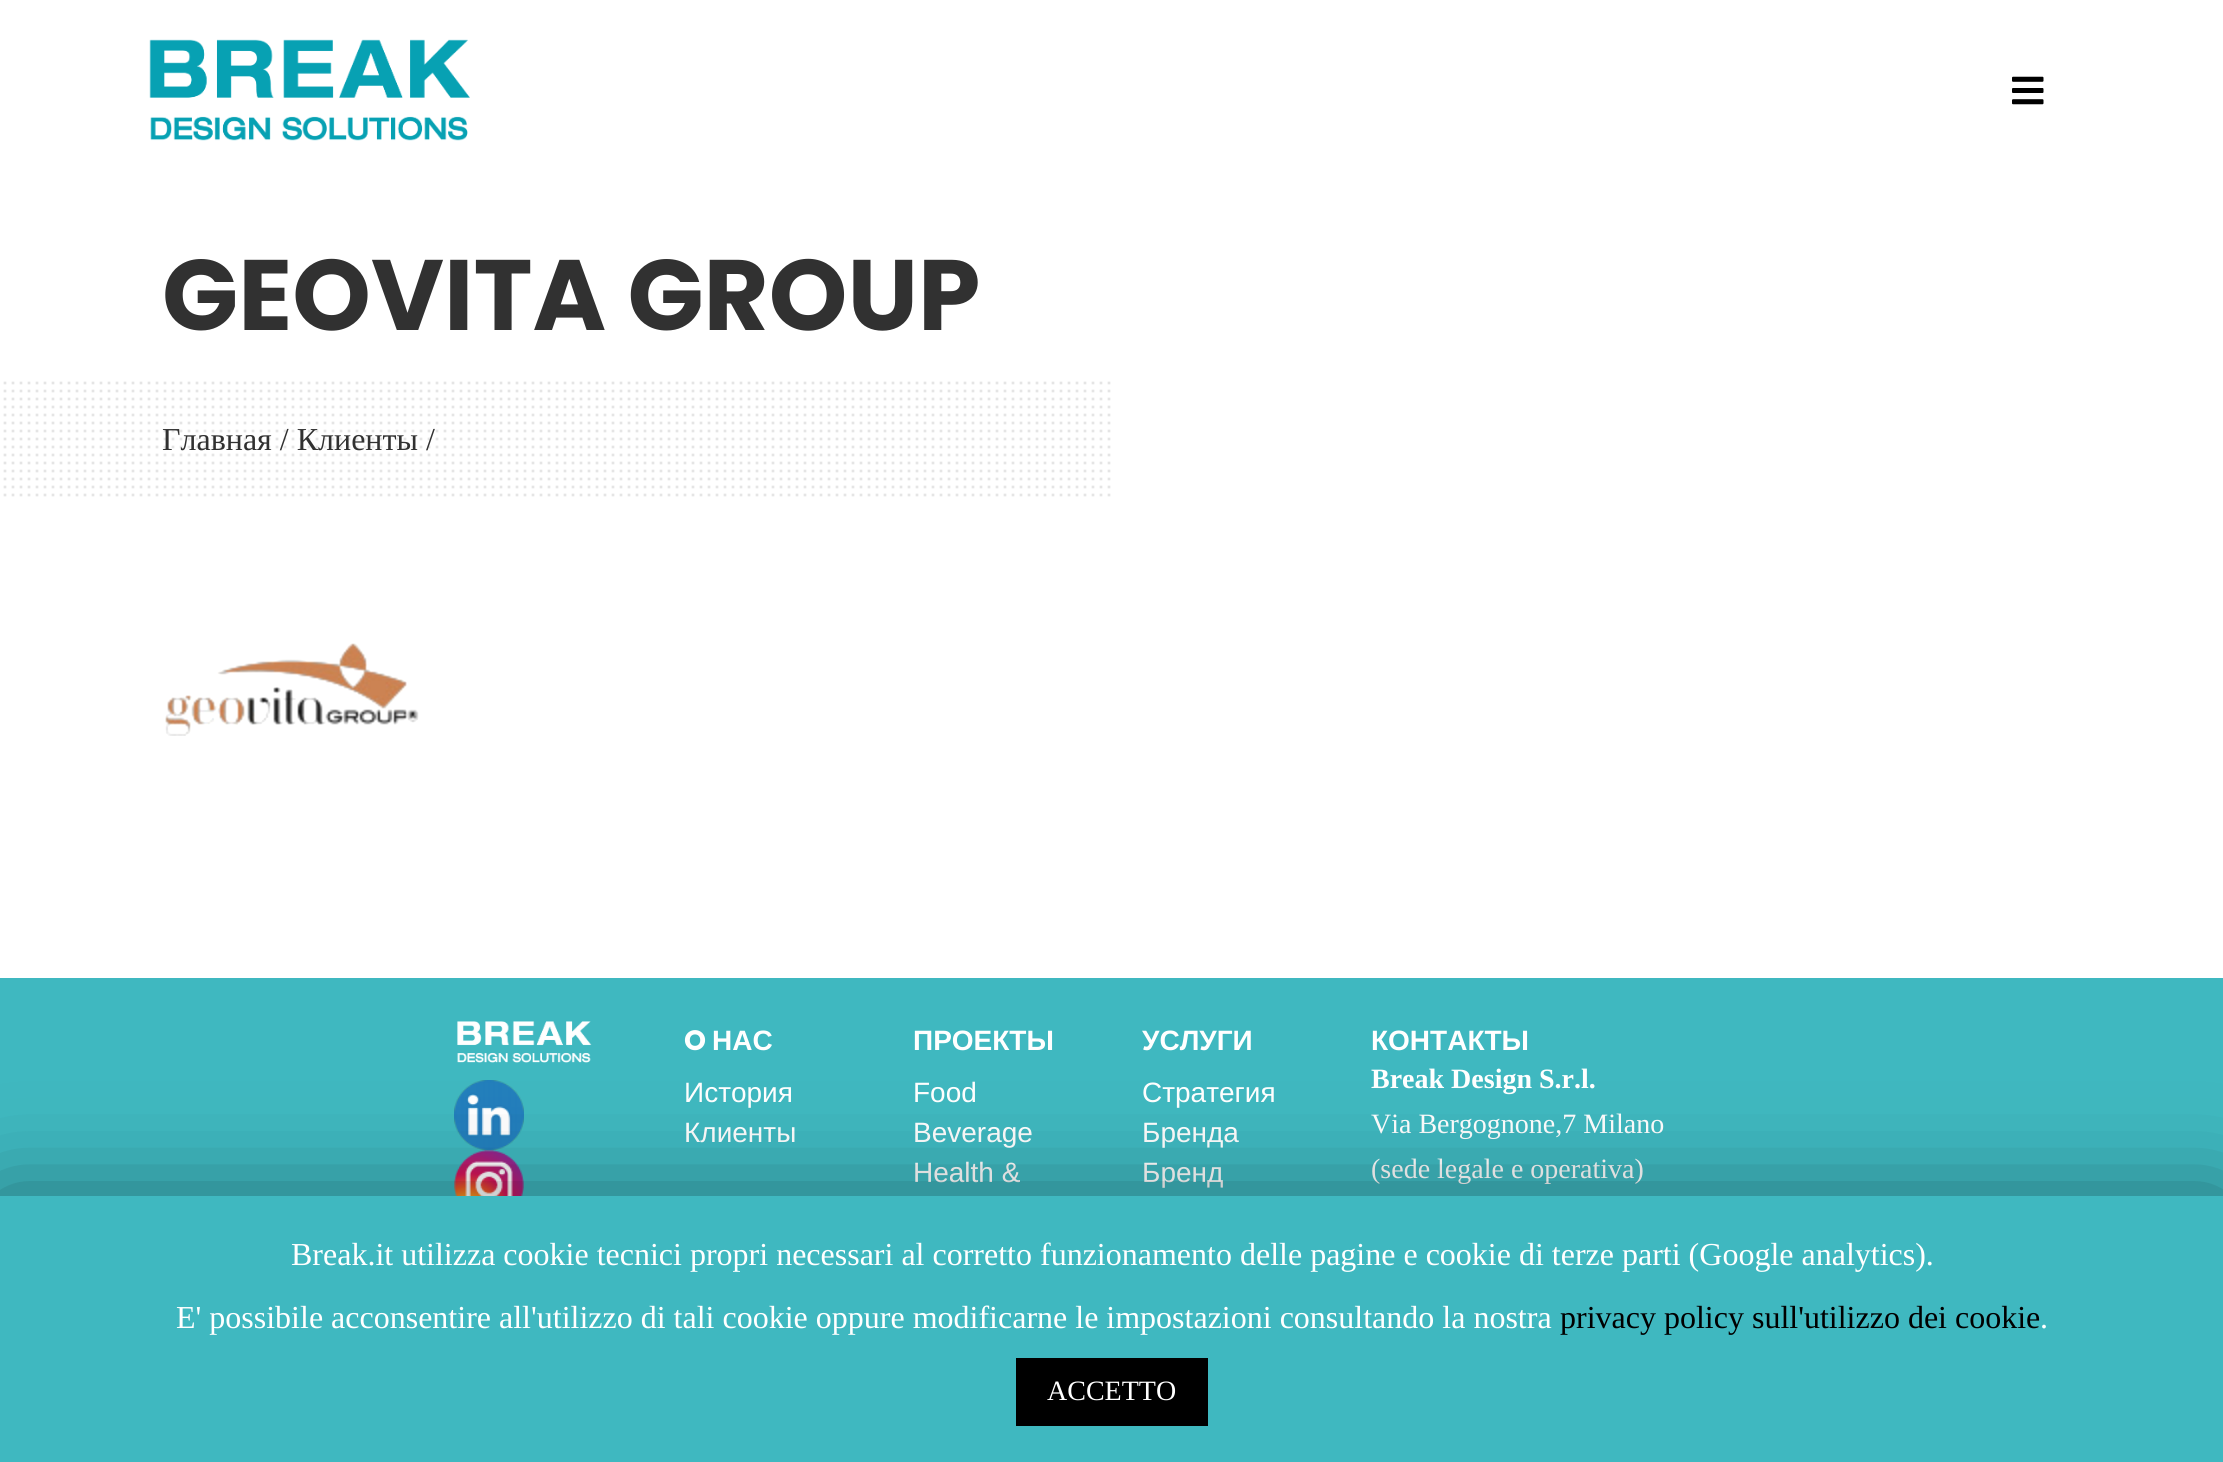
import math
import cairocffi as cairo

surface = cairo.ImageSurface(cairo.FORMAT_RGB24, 2223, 1462)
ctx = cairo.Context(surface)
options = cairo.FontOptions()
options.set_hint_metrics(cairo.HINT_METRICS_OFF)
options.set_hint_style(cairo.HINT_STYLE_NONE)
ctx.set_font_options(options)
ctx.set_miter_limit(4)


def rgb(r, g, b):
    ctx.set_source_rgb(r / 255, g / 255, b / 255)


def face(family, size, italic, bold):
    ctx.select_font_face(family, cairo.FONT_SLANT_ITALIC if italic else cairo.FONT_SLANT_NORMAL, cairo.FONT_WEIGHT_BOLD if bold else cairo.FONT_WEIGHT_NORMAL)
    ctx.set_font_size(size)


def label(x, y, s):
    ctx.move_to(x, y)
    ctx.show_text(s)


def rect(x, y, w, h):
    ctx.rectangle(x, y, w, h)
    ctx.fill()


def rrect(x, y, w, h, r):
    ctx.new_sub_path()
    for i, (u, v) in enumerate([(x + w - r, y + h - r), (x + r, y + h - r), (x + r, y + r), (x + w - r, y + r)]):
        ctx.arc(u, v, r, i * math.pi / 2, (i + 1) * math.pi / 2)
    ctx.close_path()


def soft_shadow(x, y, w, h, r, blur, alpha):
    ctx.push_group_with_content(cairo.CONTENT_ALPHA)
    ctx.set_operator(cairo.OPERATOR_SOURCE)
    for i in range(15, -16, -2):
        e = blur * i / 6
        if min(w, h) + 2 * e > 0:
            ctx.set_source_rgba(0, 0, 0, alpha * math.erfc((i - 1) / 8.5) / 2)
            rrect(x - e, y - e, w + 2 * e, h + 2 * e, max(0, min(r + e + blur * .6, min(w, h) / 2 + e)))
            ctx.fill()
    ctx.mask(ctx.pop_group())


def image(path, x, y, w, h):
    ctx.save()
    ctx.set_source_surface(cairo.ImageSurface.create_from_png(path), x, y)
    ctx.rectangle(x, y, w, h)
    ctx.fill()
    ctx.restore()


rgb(255, 255, 255)
ctx.paint()
image('image0.png', 149, 39, 321, 102)
image('image1.png', 2012, 76, 32, 29)
face('Poppins', 100, 0, 1)
rgb(49, 49, 49)
label(162, 330, 'GEOVITA GROUP')
image('image2.png', 3, 381, 1108, 116)
face('Liberation Serif', 32, 0, 0)
label(162, 450, 'Главная / Клиенты /')
image('image3.png', 165, 643, 254, 93)
rgb(63, 184, 192)
rect(0, 978, 2223, 218)
image('image4.png', 457, 1021, 135, 42)
image('image5.png', 454, 1080, 70, 70)
image('image6.png', 454, 1150, 70, 46)
face('Poppins', 28, 0, 1)
rgb(255, 255, 255)
label(684, 1050, 'O')
face('Liberation Sans', 28, 0, 1)
label(712, 1050, 'НАС')
face('Liberation Sans', 28, 0, 0)
label(684, 1102, 'История')
label(684, 1142, 'Клиенты')
face('Liberation Sans', 28, 0, 1)
label(913, 1050, 'ПРОЕКТЫ')
face('Liberation Sans', 28, 0, 0)
label(913, 1102, 'Food')
label(913, 1142, 'Beverage')
label(913, 1182, 'Health &')
face('Liberation Sans', 28, 0, 1)
label(1142, 1050, 'УСЛУГИ')
face('Liberation Sans', 28, 0, 0)
label(1142, 1102, 'Стратегия')
label(1142, 1142, 'Бренда')
label(1142, 1182, 'Бренд')
face('Liberation Sans', 28, 0, 1)
label(1371, 1050, 'КОНТАКТЫ')
face('Liberation Serif', 28, 0, 1)
label(1371, 1088, 'Break Design S.r.l.')
face('Liberation Serif', 28, 0, 0)
label(1371, 1133, 'Via Bergognone,7 Milano')
label(1371, 1178, '(sede legale e operativa)')
rgb(0, 0, 0)
soft_shadow(0, 1206, 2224, 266, 0, 50, 0.5)
rgb(63, 184, 192)
rect(0, 1196, 2223, 266)
face('Liberation Serif', 32, 0, 0)
rgb(255, 255, 255)
label(291, 1265, 'Break.it utilizza cookie tecnici propri necessari al corretto funzionamento delle pagine e cookie di terze parti (Google analytics).')
label(176, 1328, 'E\' possibile acconsentire all\'utilizzo di tali cookie oppure modificarne le impostazioni consultando la nostra')
rgb(0, 0, 0)
label(1560, 1328, 'privacy policy sull\'utilizzo dei cookie')
rgb(255, 255, 255)
label(2040, 1328, '.')
rgb(0, 0, 0)
rect(1016, 1358, 192, 68)
face('Liberation Serif', 28, 0, 0)
rgb(255, 255, 255)
label(1047, 1400, 'ACCETTO')
surface.write_to_png('render.png')
